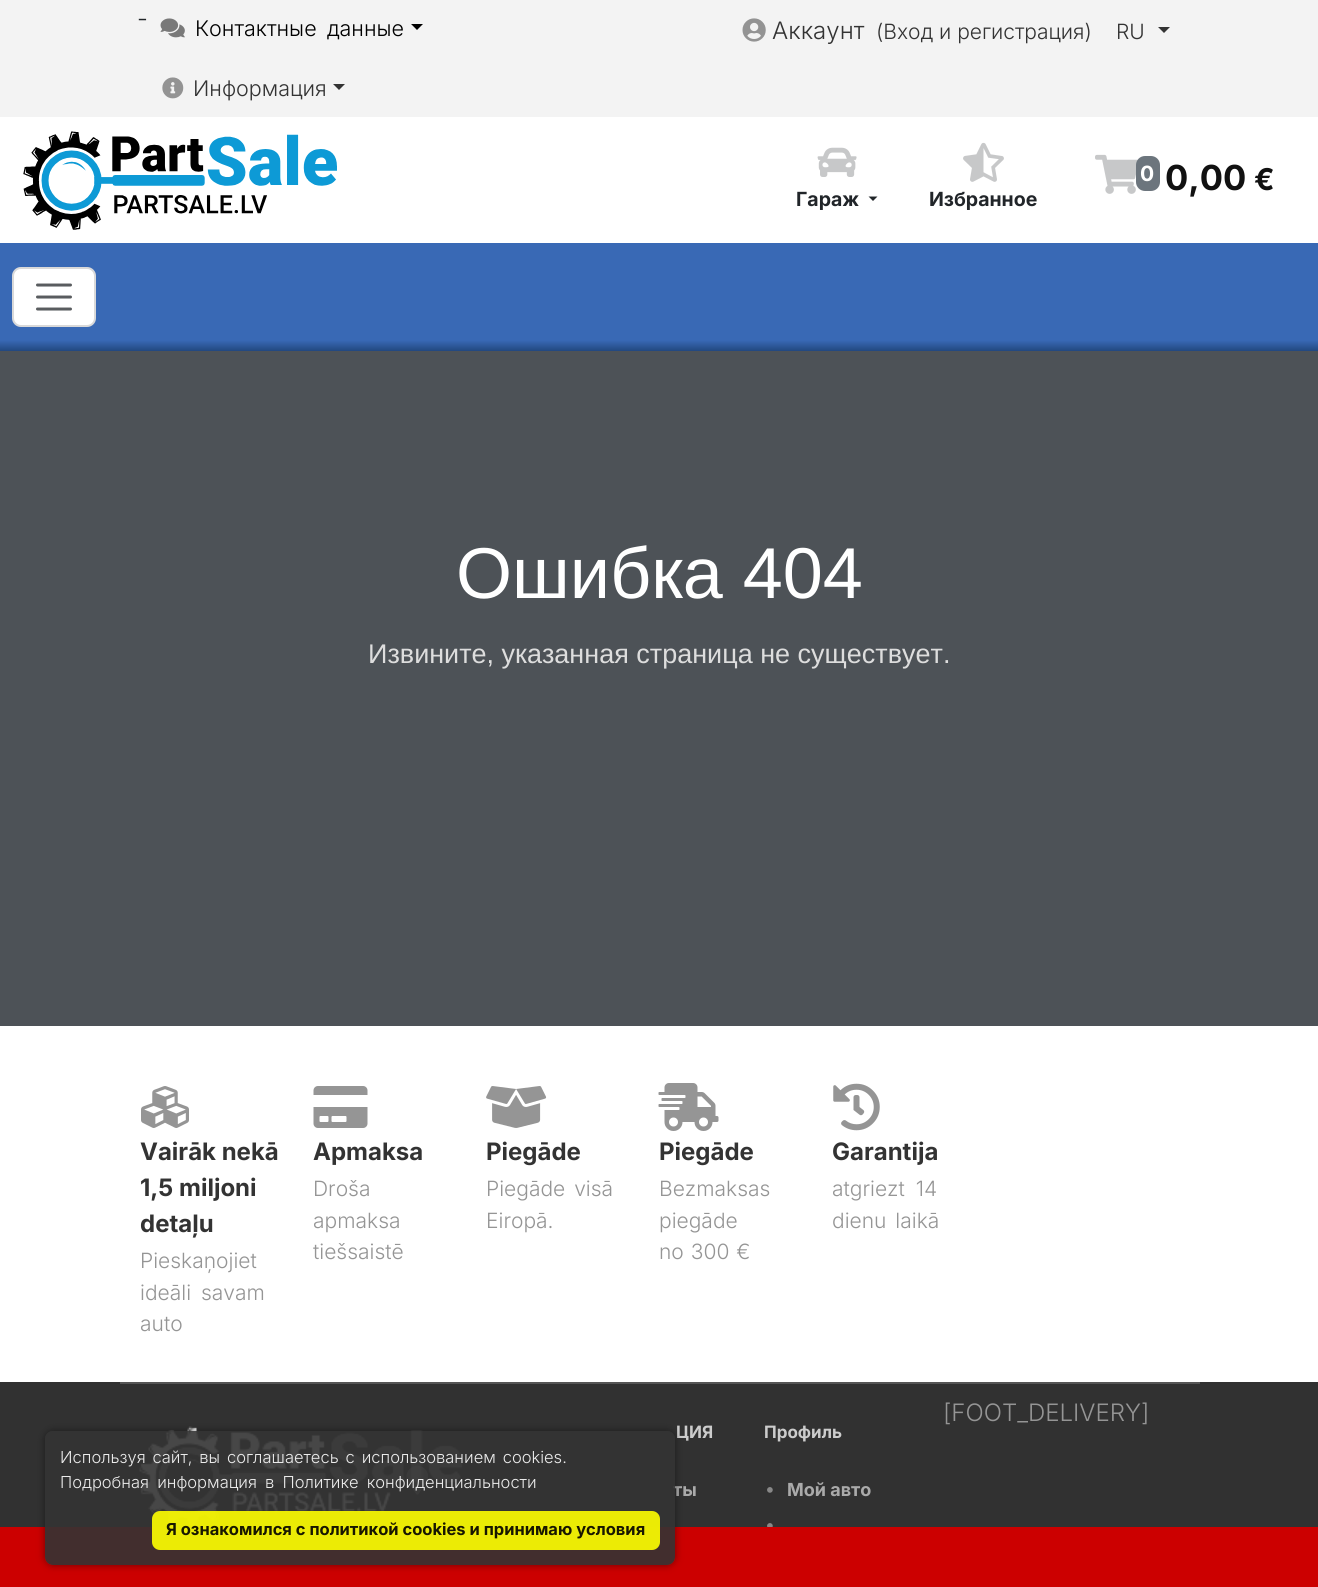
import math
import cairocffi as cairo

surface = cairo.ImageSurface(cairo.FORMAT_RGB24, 1318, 1587)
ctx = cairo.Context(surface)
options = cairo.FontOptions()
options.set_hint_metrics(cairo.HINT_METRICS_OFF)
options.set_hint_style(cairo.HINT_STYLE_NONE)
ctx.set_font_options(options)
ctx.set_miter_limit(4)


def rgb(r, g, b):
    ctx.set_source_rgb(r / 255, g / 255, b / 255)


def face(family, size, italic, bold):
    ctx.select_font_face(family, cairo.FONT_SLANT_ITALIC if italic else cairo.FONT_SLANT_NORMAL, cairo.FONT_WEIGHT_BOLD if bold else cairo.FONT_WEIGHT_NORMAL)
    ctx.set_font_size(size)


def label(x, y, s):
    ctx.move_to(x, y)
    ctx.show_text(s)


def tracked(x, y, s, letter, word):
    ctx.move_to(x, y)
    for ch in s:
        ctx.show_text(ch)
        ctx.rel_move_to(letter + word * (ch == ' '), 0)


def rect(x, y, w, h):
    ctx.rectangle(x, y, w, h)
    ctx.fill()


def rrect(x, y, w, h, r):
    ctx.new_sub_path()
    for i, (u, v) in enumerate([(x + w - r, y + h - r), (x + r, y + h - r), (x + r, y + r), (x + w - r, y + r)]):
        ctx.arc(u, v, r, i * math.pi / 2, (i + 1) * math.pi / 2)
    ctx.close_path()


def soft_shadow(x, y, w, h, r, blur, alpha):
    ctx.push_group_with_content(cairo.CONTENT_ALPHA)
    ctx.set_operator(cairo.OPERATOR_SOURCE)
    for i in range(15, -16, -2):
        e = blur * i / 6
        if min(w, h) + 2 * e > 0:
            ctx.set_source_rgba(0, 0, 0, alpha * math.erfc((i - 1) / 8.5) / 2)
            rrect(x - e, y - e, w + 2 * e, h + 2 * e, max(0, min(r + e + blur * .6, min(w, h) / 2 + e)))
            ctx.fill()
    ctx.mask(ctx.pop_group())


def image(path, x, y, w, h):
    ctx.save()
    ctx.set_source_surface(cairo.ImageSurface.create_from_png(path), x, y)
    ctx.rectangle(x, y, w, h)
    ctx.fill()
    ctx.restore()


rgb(255, 255, 255)
ctx.paint()
rgb(243, 243, 243)
rect(0, 0, 1318, 117)
face('Inter Light', 24, 0, 0)
rgb(33, 37, 41)
label(137, 27, '-')
image('image0.png', 160, 18, 25, 20)
face('Inter Light', 21.5, 0, 0)
rgb(0, 0, 0)
tracked(195, 36, 'Контактные данные', 0, 4)
ctx.new_path()
ctx.move_to(411, 24)
ctx.line_to(423, 24)
ctx.line_to(417, 30)
ctx.close_path()
ctx.fill()
image('image1.png', 162, 77, 22, 22)
rgb(51, 51, 51)
label(193, 96, 'Информация')
ctx.new_path()
ctx.move_to(333, 84)
ctx.line_to(345, 84)
ctx.line_to(339, 90)
ctx.close_path()
ctx.fill()
image('image2.png', 742, 18, 24, 24)
face('Inter Light', 24, 0, 0)
label(772, 39, 'Аккаунт')
face('Inter Light', 21, 0, 0)
label(876, 39, '(Вход и регистрация)')
label(1116, 39, 'RU')
ctx.new_path()
ctx.move_to(1158, 27)
ctx.line_to(1170, 27)
ctx.line_to(1164, 33)
ctx.close_path()
ctx.fill()
image('image3.png', 23, 131, 314, 99)
image('image4.png', 1095, 154, 43, 40)
rgb(108, 117, 125)
rrect(1136, 156, 24, 35, 9)
ctx.fill()
face('Inter', 21, 0, 1)
rgb(255, 255, 255)
label(1140, 181, '0')
face('Inter', 34.5, 0, 1)
rgb(17, 17, 17)
label(1165, 190, '0,00')
face('Inter', 30, 0, 1)
label(1254, 190, '€')
image('image5.png', 817, 147, 40, 30)
face('Inter', 19.5, 0, 1)
rgb(33, 37, 41)
label(796, 206, 'Гараж')
ctx.new_path()
ctx.move_to(868.5, 196.5)
ctx.line_to(877.5, 196.5)
ctx.line_to(873, 201)
ctx.close_path()
ctx.fill()
image('image6.png', 963, 142, 41, 40)
label(929, 206, 'Избранное')
gradient = cairo.LinearGradient(659, 243, 659, 351)
gradient.add_color_stop_rgba(0.9, 0.224, 0.412, 0.71, 1)
gradient.add_color_stop_rgba(1, 0.133, 0.282, 0.502, 1)
ctx.set_source(gradient)
rect(0, 243, 1318, 108)
rgb(255, 255, 255)
rrect(12, 267, 84, 60, 9)
ctx.fill()
rrect(13, 268, 82, 58, 8)
ctx.set_source_rgba(0, 0, 0, 0.15)
ctx.stroke()
ctx.new_path()
ctx.move_to(37.5, 285)
ctx.line_to(70.5, 285)
ctx.move_to(37.5, 297)
ctx.line_to(70.5, 297)
ctx.move_to(37.5, 309)
ctx.line_to(70.5, 309)
rgb(89, 92, 95)
ctx.set_line_width(3)
ctx.set_line_cap(cairo.LINE_CAP_ROUND)
ctx.stroke()
rgb(77, 82, 87)
rect(0, 351, 1318, 675)
face('Liberation Sans', 72, 0, 0)
rgb(255, 255, 255)
label(456, 598, 'Ошибка 404')
face('Liberation Sans', 27, 0, 0)
rgb(221, 221, 221)
label(368, 663, 'Извините, указанная страница не существует.')
image('image7.png', 141, 1086, 48, 42)
face('Inter', 24, 0, 1)
rgb(51, 51, 51)
label(140, 1160, 'Vairāk nekā')
label(140, 1196, '1,5 miljoni')
label(140, 1232, 'detaļu')
face('Inter Light', 21, 0, 0)
rgb(149, 149, 149)
label(140, 1268, 'Pieskaņojiet')
tracked(140, 1300, 'ideāli savam', 0, 4)
label(140, 1331, 'auto')
image('image8.png', 313, 1086, 55, 42)
face('Inter', 24, 0, 1)
rgb(51, 51, 51)
label(313, 1160, 'Apmaksa')
face('Inter Light', 21, 0, 0)
rgb(149, 149, 149)
label(313, 1196, 'Droša')
label(313, 1228, 'apmaksa')
label(313, 1259, 'tiešsaistē')
image('image9.png', 486, 1086, 61, 42)
face('Inter', 24, 0, 1)
rgb(51, 51, 51)
label(486, 1160, 'Piegāde')
face('Inter Light', 21, 0, 0)
rgb(149, 149, 149)
tracked(486, 1196, 'Piegāde visā', 0, 3)
label(486, 1228, 'Eiropā.')
image('image10.png', 658, 1083, 61, 48)
face('Inter', 24, 0, 1)
rgb(51, 51, 51)
label(659, 1160, 'Piegāde')
face('Inter Light', 21, 0, 0)
rgb(149, 149, 149)
label(659, 1196, 'Bezmaksas')
label(659, 1228, 'piegāde')
tracked(659, 1259, 'no 300 €', 0, 1)
image('image11.png', 833, 1083, 47, 48)
face('Inter', 24, 0, 1)
rgb(51, 51, 51)
label(832, 1160, 'Garantija')
face('Inter Light', 21, 0, 0)
rgb(149, 149, 149)
tracked(832, 1196, 'atgriezt 14', 0, 5)
tracked(832, 1228, 'dienu laikā', 0, 3)
rgb(49, 49, 49)
rect(0, 1382, 1318, 145)
rgb(85, 85, 85)
rect(120, 1382, 1080, 2)
face('Inter Light', 24, 0, 0)
rgb(149, 149, 149)
label(943, 1421, '[FOOT_DELIVERY]')
image('image12.png', 139, 1426, 324, 101)
face('Inter', 17, 0, 1)
rgb(204, 204, 204)
label(676, 1438, 'ЦИЯ')
face('Inter', 18, 0, 1)
rgb(170, 170, 170)
label(673, 1496, 'ты')
face('Inter', 17, 0, 1)
rgb(204, 204, 204)
label(764, 1438, 'Профиль')
face('Inter Light', 21, 0, 0)
rgb(136, 136, 136)
label(764, 1496, '•')
face('Inter', 18, 0, 1)
rgb(170, 170, 170)
label(787, 1496, 'Мой авто')
face('Inter Light', 21, 0, 0)
rgb(136, 136, 136)
label(764, 1532, '•')
image('image13.png', 406, 1465, 23, 30)
rgb(204, 0, 0)
rect(0, 1527, 1318, 60)
ctx.save()
ctx.set_fill_rule(cairo.FILL_RULE_EVEN_ODD)
ctx.new_path()
ctx.move_to(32, 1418)
ctx.line_to(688, 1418)
ctx.line_to(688, 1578)
ctx.line_to(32, 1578)
ctx.close_path()
ctx.move_to(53, 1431)
ctx.line_to(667, 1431)
ctx.curve_to(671.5, 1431, 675, 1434.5, 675, 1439)
ctx.line_to(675, 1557)
ctx.curve_to(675, 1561.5, 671.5, 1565, 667, 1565)
ctx.line_to(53, 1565)
ctx.curve_to(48.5, 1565, 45, 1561.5, 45, 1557)
ctx.line_to(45, 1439)
ctx.curve_to(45, 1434.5, 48.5, 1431, 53, 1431)
ctx.close_path()
ctx.clip()
rgb(0, 0, 0)
soft_shadow(45, 1431, 630, 134, 8, 4, 0.45)
ctx.restore()
ctx.set_source_rgba(0.2, 0.2, 0.2, 0.9)
rrect(45, 1431, 630, 134, 8)
ctx.fill()
face('Inter Light', 16.5, 0, 0)
rgb(235, 235, 235)
tracked(60, 1463, 'Используя сайт, вы соглашаетесь с использованием cookies.', 0, 2.25)
tracked(60, 1488, 'Подробная информация в Политике конфиденциальности', 0, 3.5)
ctx.set_source_rgba(1, 1, 0, 0.9)
rrect(152, 1511, 508, 39, 8)
ctx.fill()
face('Inter', 16.5, 0, 1)
rgb(24, 23, 0)
label(166, 1535, 'Я ознакомился с политикой cookies и принимаю условия')
surface.write_to_png('render.png')
